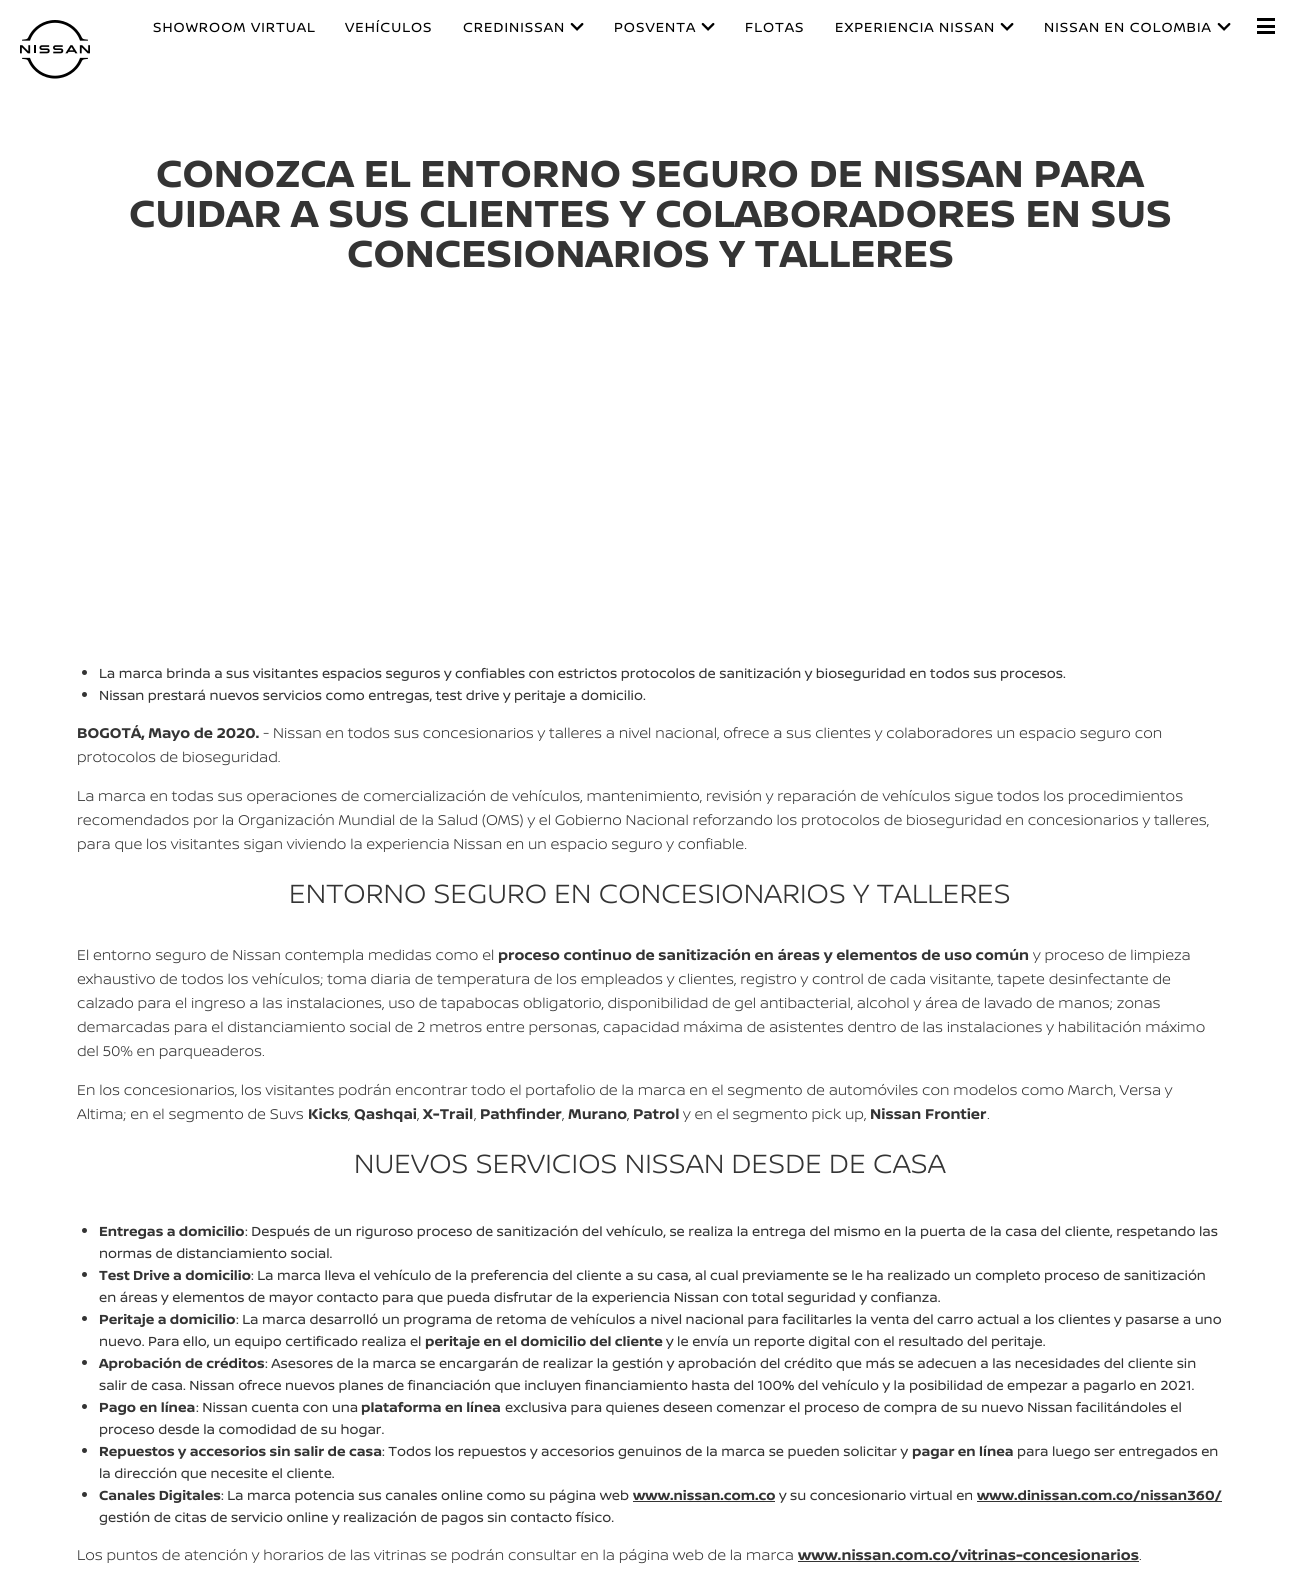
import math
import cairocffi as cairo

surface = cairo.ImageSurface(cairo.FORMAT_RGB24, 1301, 1577)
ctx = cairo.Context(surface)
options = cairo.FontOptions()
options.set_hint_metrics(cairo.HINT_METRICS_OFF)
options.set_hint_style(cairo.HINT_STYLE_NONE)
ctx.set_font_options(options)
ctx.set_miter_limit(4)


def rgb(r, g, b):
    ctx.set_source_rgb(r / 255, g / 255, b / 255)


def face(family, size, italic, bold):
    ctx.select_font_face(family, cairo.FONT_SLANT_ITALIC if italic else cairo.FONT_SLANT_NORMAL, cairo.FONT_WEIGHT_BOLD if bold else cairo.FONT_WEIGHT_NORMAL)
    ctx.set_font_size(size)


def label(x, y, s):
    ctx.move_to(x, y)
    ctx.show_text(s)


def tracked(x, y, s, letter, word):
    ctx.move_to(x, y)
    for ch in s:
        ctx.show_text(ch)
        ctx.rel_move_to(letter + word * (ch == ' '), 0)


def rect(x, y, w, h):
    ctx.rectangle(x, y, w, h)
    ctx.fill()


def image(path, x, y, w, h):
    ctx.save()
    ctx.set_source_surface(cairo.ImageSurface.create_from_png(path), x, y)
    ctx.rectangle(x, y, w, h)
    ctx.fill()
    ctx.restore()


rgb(255, 255, 255)
ctx.paint()
image('image0.png', 20, 20, 70, 59)
face('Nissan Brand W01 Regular', 14, 0, 0)
rgb(0, 0, 0)
tracked(153, 32, 'SHOWROOM VIRTUAL', 1, 0)
tracked(345, 32, 'VEHÍCULOS', 1, 0)
tracked(463, 32, 'CREDINISSAN', 1, 0)
image('image1.png', 570, 22, 14, 9)
tracked(614, 32, 'POSVENTA', 1, 0)
image('image1.png', 701, 22, 14, 9)
tracked(745, 32, 'FLOTAS', 1, 0)
tracked(835, 32, 'EXPERIENCIA NISSAN', 1, 0)
image('image1.png', 1000, 22, 14, 9)
tracked(1044, 32, 'NISSAN EN COLOMBIA', 1, 0)
image('image1.png', 1217, 22, 14, 9)
rect(1257, 18, 18, 3)
rect(1257, 25, 18, 3)
rect(1257, 31, 18, 3)
face('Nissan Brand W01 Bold', 40, 0, 1)
rgb(52, 52, 52)
tracked(156, 187, 'CONOZCA EL ENTORNO SEGURO DE NISSAN PARA', 0.1, 0)
tracked(129, 227, 'CUIDAR A SUS CLIENTES Y COLABORADORES EN SUS', 0.1, 0)
tracked(347, 267, 'CONCESIONARIOS Y TALLERES', 0.1, 0)
ctx.new_path()
ctx.arc(84.5, 672.5, 2.5, 0, 2 * math.pi)
ctx.fill()
face('Nissan Brand W01 Regular', 14, 0, 0)
label(99, 678, 'La marca brinda a sus visitantes espacios seguros y confiables con estrictos protocolos de sanitización y bioseguridad en todos sus procesos.')
ctx.new_path()
ctx.arc(84.5, 694.5, 2.5, 0, 2 * math.pi)
ctx.fill()
label(99, 700, 'Nissan prestará nuevos servicios como entregas, test drive y peritaje a domicilio.')
face('Nissan Brand W01 Bold', 15, 0, 1)
label(77, 738, 'BOGOTÁ, Mayo de 2020.')
face('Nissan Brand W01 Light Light', 15, 0, 0)
label(263, 738, '- Nissan en todos sus concesionarios y talleres a nivel nacional, ofrece a sus clientes y colaboradores un espacio seguro con')
label(77, 762, 'protocolos de bioseguridad.')
label(77, 801, 'La marca en todas sus operaciones de comercialización de vehículos, mantenimiento, revisión y reparación de vehículos sigue todos los procedimientos')
label(77, 825, 'recomendados por la Organización Mundial de la Salud (OMS) y el Gobierno Nacional reforzando los protocolos de bioseguridad en concesionarios y talleres,')
label(77, 849, 'para que los visitantes sigan viviendo la experiencia Nissan en un espacio seguro y confiable.')
face('Nissan Brand W01 Light Light', 28, 0, 0)
tracked(289, 903, 'ENTORNO SEGURO EN CONCESIONARIOS Y TALLERES', 0.1, 0)
face('Nissan Brand W01 Light Light', 15, 0, 0)
label(77, 960, 'El entorno seguro de Nissan contempla medidas como el')
face('Nissan Brand W01 Bold', 15, 0, 1)
label(498, 960, 'proceso continuo de sanitización en áreas y elementos de uso común')
face('Nissan Brand W01 Light Light', 15, 0, 0)
label(1033, 960, 'y proceso de limpieza')
label(77, 984, 'exhaustivo de todos los vehículos; toma diaria de temperatura de los empleados y clientes, registro y control de cada visitante, tapete desinfectante de')
label(77, 1008, 'calzado para el ingreso a las instalaciones, uso de tapabocas obligatorio, disponibilidad de gel antibacterial, alcohol y área de lavado de manos; zonas')
label(77, 1032, 'demarcadas para el distanciamiento social de 2 metros entre personas, capacidad máxima de asistentes dentro de las instalaciones y habilitación máximo')
label(77, 1056, 'del 50% en parqueaderos.')
label(77, 1095, 'En los concesionarios, los visitantes podrán encontrar todo el portafolio de la marca en el segmento de automóviles con modelos como March, Versa y')
label(77, 1119, 'Altima; en el segmento de Suvs')
face('Nissan Brand W01 Bold', 15, 0, 1)
label(308, 1119, 'Kicks')
face('Nissan Brand W01 Light Light', 15, 0, 0)
label(348, 1119, ',')
face('Nissan Brand W01 Bold', 15, 0, 1)
label(354, 1119, 'Qashqai')
face('Nissan Brand W01 Light Light', 15, 0, 0)
label(417, 1119, ',')
face('Nissan Brand W01 Bold', 15, 0, 1)
label(423, 1119, 'X-Trail')
face('Nissan Brand W01 Light Light', 15, 0, 0)
label(474, 1119, ',')
face('Nissan Brand W01 Bold', 15, 0, 1)
label(480, 1119, 'Pathfinder')
face('Nissan Brand W01 Light Light', 15, 0, 0)
label(562, 1119, ',')
face('Nissan Brand W01 Bold', 15, 0, 1)
label(568, 1119, 'Murano')
face('Nissan Brand W01 Light Light', 15, 0, 0)
label(627, 1119, ',')
face('Nissan Brand W01 Bold', 15, 0, 1)
label(633, 1119, 'Patrol')
face('Nissan Brand W01 Light Light', 15, 0, 0)
label(683, 1119, 'y en el segmento pick up,')
face('Nissan Brand W01 Bold', 15, 0, 1)
label(870, 1119, 'Nissan Frontier')
face('Nissan Brand W01 Light Light', 15, 0, 0)
label(987, 1119, '.')
face('Nissan Brand W01 Light Light', 28, 0, 0)
tracked(354, 1173, 'NUEVOS SERVICIOS NISSAN DESDE DE CASA', 0.1, 0)
ctx.new_path()
ctx.arc(84.5, 1230.5, 2.5, 0, 2 * math.pi)
ctx.fill()
face('Nissan Brand W01 Bold', 14, 0, 1)
label(99, 1236, 'Entregas a domicilio')
face('Nissan Brand W01 Regular', 14, 0, 0)
label(245, 1236, ': Después de un riguroso proceso de sanitización del vehículo, se realiza la entrega del mismo en la puerta de la casa del cliente, respetando las')
label(99, 1258, 'normas de distanciamiento social.')
ctx.new_path()
ctx.arc(84.5, 1274.5, 2.5, 0, 2 * math.pi)
ctx.fill()
face('Nissan Brand W01 Bold', 14, 0, 1)
label(99, 1280, 'Test Drive a domicilio')
face('Nissan Brand W01 Regular', 14, 0, 0)
label(251, 1280, ': La marca lleva el vehículo de la preferencia del cliente a su casa, al cual previamente se le ha realizado un completo proceso de sanitización')
label(99, 1302, 'en áreas y elementos de mayor contacto para que pueda disfrutar de la experiencia Nissan con total seguridad y confianza.')
ctx.new_path()
ctx.arc(84.5, 1318.5, 2.5, 0, 2 * math.pi)
ctx.fill()
face('Nissan Brand W01 Bold', 14, 0, 1)
label(99, 1324, 'Peritaje a domicilio')
face('Nissan Brand W01 Regular', 14, 0, 0)
label(236, 1324, ': La marca desarrolló un programa de retoma de vehículos a nivel nacional para facilitarles la venta del carro actual a los clientes y pasarse a uno')
label(99, 1346, 'nuevo. Para ello, un equipo certificado realiza el')
face('Nissan Brand W01 Bold', 14, 0, 1)
label(425, 1346, 'peritaje en el domicilio del cliente')
face('Nissan Brand W01 Regular', 14, 0, 0)
label(666, 1346, 'y le envía un reporte digital con el resultado del peritaje.')
ctx.new_path()
ctx.arc(84.5, 1362.5, 2.5, 0, 2 * math.pi)
ctx.fill()
face('Nissan Brand W01 Bold', 14, 0, 1)
label(99, 1368, 'Aprobación de créditos')
face('Nissan Brand W01 Regular', 14, 0, 0)
label(265, 1368, ': Asesores de la marca se encargarán de realizar la gestión y aprobación del crédito que más se adecuen a las necesidades del cliente sin')
label(99, 1390, 'salir de casa. Nissan ofrece nuevos planes de financiación que incluyen financiamiento hasta del 100% del vehículo y la posibilidad de empezar a pagarlo en 2021.')
ctx.new_path()
ctx.arc(84.5, 1406.5, 2.5, 0, 2 * math.pi)
ctx.fill()
face('Nissan Brand W01 Bold', 14, 0, 1)
label(99, 1412, 'Pago en línea')
face('Nissan Brand W01 Regular', 14, 0, 0)
label(196, 1412, ': Nissan cuenta con una')
face('Nissan Brand W01 Bold', 14, 0, 1)
label(361, 1412, 'plataforma en línea')
face('Nissan Brand W01 Regular', 14, 0, 0)
label(505, 1412, 'exclusiva para quienes deseen comenzar el proceso de compra de su nuevo Nissan facilitándoles el')
label(99, 1434, 'proceso desde la comodidad de su hogar.')
ctx.new_path()
ctx.arc(84.5, 1450.5, 2.5, 0, 2 * math.pi)
ctx.fill()
face('Nissan Brand W01 Bold', 14, 0, 1)
label(99, 1456, 'Repuestos y accesorios sin salir de casa')
face('Nissan Brand W01 Regular', 14, 0, 0)
label(382, 1456, ': Todos los repuestos y accesorios genuinos de la marca se pueden solicitar y')
face('Nissan Brand W01 Bold', 14, 0, 1)
label(912, 1456, 'pagar en línea')
face('Nissan Brand W01 Regular', 14, 0, 0)
label(1017, 1456, 'para luego ser entregados en')
label(99, 1478, 'la dirección que necesite el cliente.')
ctx.new_path()
ctx.arc(84.5, 1494.5, 2.5, 0, 2 * math.pi)
ctx.fill()
face('Nissan Brand W01 Bold', 14, 0, 1)
label(99, 1500, 'Canales Digitales')
face('Nissan Brand W01 Regular', 14, 0, 0)
label(221, 1500, ': La marca potencia sus canales online como su página web')
face('Nissan Brand W01 Bold', 14, 0, 1)
label(633, 1500, 'www.nissan.com.co')
rect(633, 1501, 142, 1)
face('Nissan Brand W01 Regular', 14, 0, 0)
label(779, 1500, 'y su concesionario virtual en')
rect(977, 1501, 245, 1)
face('Nissan Brand W01 Bold', 14, 0, 1)
label(977, 1500, 'www.dinissan.com.co/nissan360/')
face('Nissan Brand W01 Regular', 14, 0, 0)
label(99, 1522, 'gestión de citas de servicio online y realización de pagos sin contacto físico.')
face('Nissan Brand W01 Light Light', 15, 0, 0)
label(77, 1560, 'Los puntos de atención y horarios de las vitrinas se podrán consultar en la página web de la marca')
rect(798, 1561, 341, 1)
face('Nissan Brand W01 Bold', 15, 0, 1)
label(798, 1560, 'www.nissan.com.co/vitrinas-concesionarios')
face('Nissan Brand W01 Light Light', 15, 0, 0)
label(1139, 1560, '.')
surface.write_to_png('render.png')
